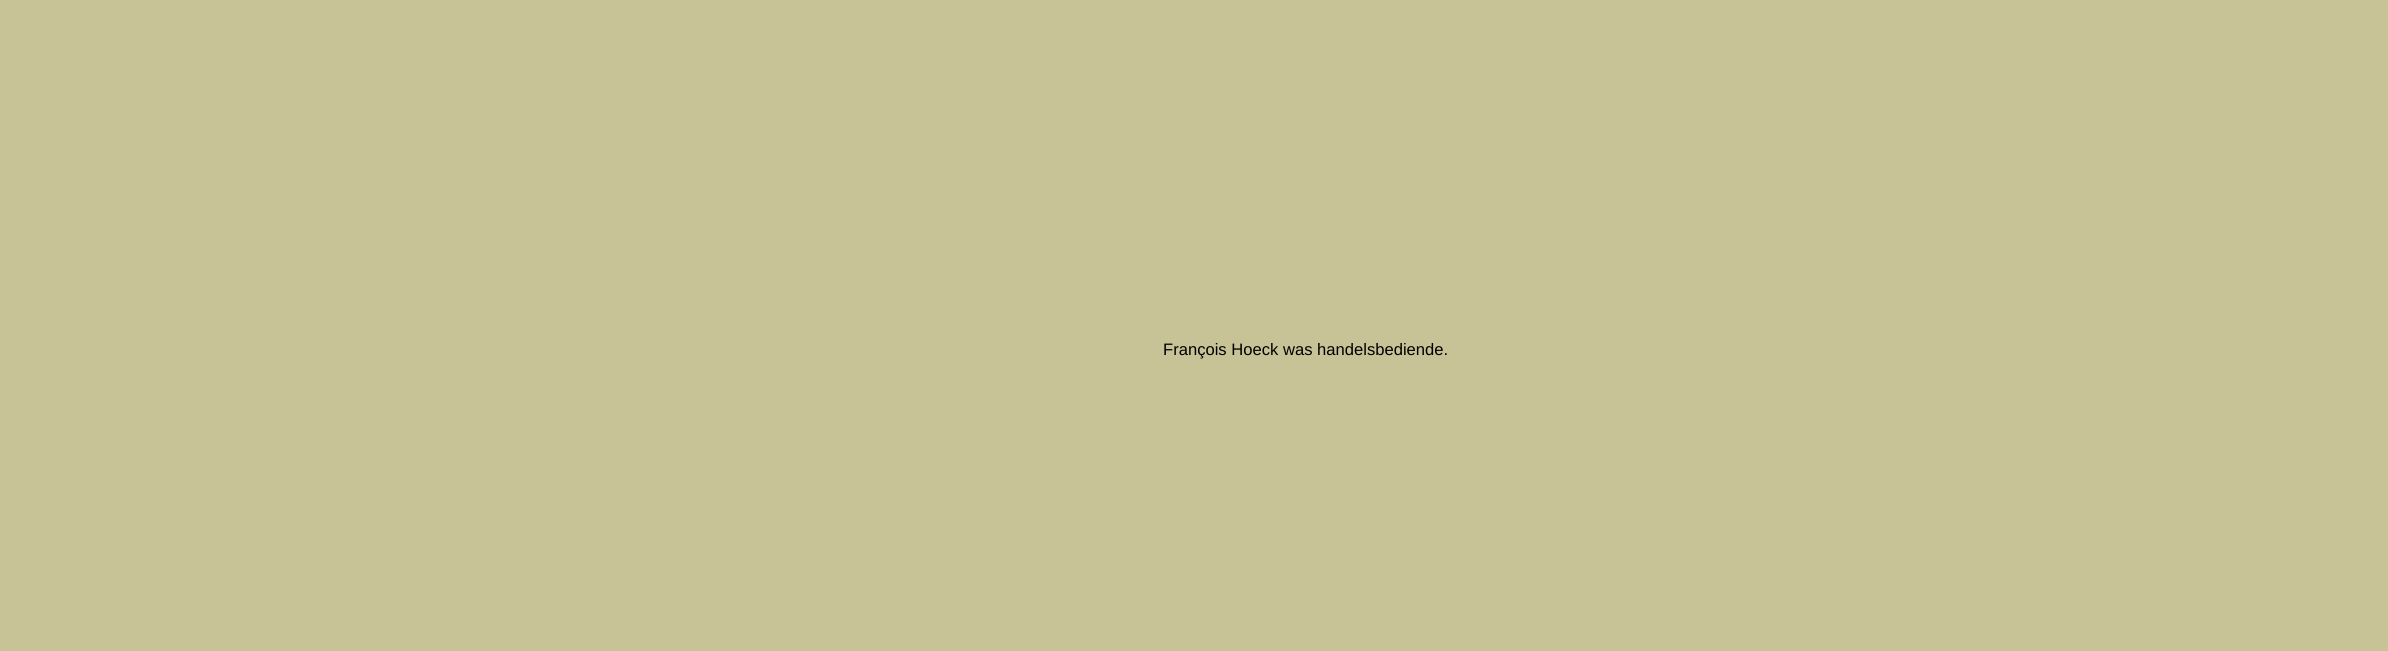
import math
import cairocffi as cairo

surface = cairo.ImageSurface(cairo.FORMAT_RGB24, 2388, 651)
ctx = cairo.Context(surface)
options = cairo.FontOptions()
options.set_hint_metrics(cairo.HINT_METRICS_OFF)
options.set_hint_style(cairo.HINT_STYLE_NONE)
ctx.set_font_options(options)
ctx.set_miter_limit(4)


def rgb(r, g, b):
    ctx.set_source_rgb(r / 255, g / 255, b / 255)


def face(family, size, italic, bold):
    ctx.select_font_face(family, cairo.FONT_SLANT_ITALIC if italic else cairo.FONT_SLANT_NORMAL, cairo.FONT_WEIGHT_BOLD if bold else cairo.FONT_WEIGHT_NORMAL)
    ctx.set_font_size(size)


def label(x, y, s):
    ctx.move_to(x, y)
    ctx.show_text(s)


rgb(199, 195, 151)
ctx.paint()
face('Liberation Sans', 16.6, 0, 0)
rgb(0, 0, 0)
label(1163, 355, 'François Hoeck was handelsbediende.')
surface.write_to_png('render.png')
